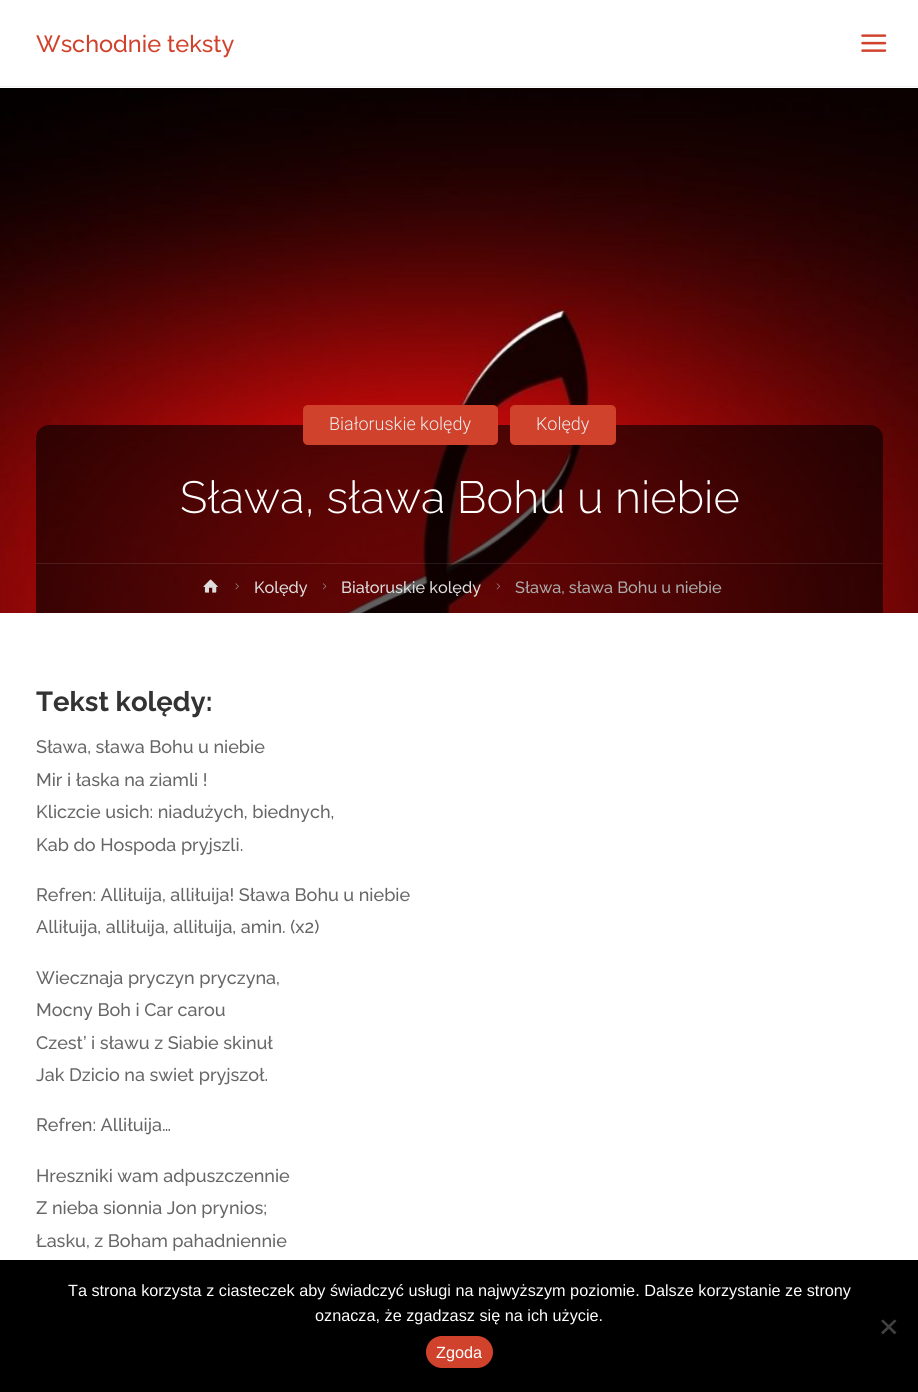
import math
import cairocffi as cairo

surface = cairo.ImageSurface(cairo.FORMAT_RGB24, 918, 1392)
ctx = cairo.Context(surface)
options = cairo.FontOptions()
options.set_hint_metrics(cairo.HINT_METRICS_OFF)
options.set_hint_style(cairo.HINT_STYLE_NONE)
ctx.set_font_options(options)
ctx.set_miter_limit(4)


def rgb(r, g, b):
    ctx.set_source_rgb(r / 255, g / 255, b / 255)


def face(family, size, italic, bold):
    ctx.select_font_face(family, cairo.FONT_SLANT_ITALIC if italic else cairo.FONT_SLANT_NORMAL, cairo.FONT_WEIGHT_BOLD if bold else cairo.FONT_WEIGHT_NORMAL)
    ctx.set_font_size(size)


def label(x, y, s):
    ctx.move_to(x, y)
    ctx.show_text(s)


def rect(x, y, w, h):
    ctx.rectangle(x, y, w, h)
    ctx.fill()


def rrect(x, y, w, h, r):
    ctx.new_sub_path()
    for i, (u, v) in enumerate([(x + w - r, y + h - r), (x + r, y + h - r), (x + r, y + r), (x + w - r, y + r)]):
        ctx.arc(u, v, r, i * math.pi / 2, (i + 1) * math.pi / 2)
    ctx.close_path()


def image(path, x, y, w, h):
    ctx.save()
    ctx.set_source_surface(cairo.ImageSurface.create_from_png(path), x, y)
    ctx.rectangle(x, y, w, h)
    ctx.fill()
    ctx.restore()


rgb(255, 255, 255)
ctx.paint()
rgb(242, 242, 242)
rect(0, 86, 918, 1)
face('Raleway Medium', 23.5, 0, 0)
rgb(208, 66, 44)
label(36, 52, 'Wschodnie teksty')
image('image0.png', 861, 34, 26, 18)
image('image1.png', 0, 88, 918, 525)
ctx.set_source_rgba(0, 0, 0, 0.6)
ctx.new_path()
ctx.move_to(49, 425)
ctx.line_to(870, 425)
ctx.curve_to(877, 425, 883, 431, 883, 438)
ctx.line_to(883, 613)
ctx.line_to(36, 613)
ctx.line_to(36, 438)
ctx.curve_to(36, 431, 42, 425, 49, 425)
ctx.close_path()
ctx.fill()
rgb(208, 66, 44)
rrect(303, 405, 195, 40, 5)
ctx.fill()
face('Roboto Light', 18, 0, 0)
rgb(238, 238, 238)
label(329, 430, 'Białoruskie kolędy')
rgb(208, 66, 44)
rrect(510, 405, 106, 40, 5)
ctx.fill()
rgb(238, 238, 238)
label(536, 430, 'Kolędy')
face('Raleway Light', 45, 0, 0)
rgb(255, 255, 255)
label(180, 513, 'Sława, sława Bohu u niebie')
ctx.set_source_rgba(0, 0, 0, 0.05)
rect(36, 563, 813, 50)
ctx.set_source_rgba(1, 1, 1, 0.1)
rect(36, 563, 847, 1)
image('image2.png', 203, 579, 15, 14)
image('image3.png', 235, 583, 4, 7)
face('Raleway Medium', 16.25, 0, 0)
rgb(221, 221, 221)
label(254, 593, 'Kolędy')
image('image4.png', 323, 583, 4, 7)
label(341, 593, 'Białoruskie kolędy')
image('image5.png', 496, 583, 4, 7)
rgb(171, 171, 171)
label(515, 593, 'Sława, sława Bohu u niebie')
face('Raleway', 27.5, 0, 1)
rgb(51, 51, 51)
label(36, 711, 'Tekst kolędy:')
face('Raleway Medium', 18, 0, 0)
rgb(102, 102, 102)
label(36, 753, 'Sława, sława Bohu u niebie')
label(36, 786, 'Mir i łaska na ziamli !')
label(36, 818, 'Kliczcie usich: niadużych, biednych,')
label(36, 851, 'Kab do Hospoda pryjszli.')
label(36, 901, 'Refren: Alliłuija, alliłuija! Sława Bohu u niebie')
label(36, 933, 'Alliłuija, alliłuija, alliłuija, amin. (x2)')
label(36, 984, 'Wiecznaja pryczyn pryczyna,')
label(36, 1016, 'Mocny Boh i Car carou')
label(36, 1049, 'Czest’ i sławu z Siabie skinuł')
label(36, 1081, 'Jak Dzicio na swiet pryjszoł.')
label(36, 1131, 'Refren: Alliłuija…')
label(36, 1182, 'Hreszniki wam adpuszczennie')
label(36, 1214, 'Z nieba sionnia Jon prynios;')
label(36, 1247, 'Łasku, z Boham pahadniennie')
rgb(0, 0, 0)
rect(0, 1260, 918, 132)
face('Liberation Sans', 16.25, 0, 0)
rgb(255, 255, 255)
label(68, 1296, 'Ta strona korzysta z ciasteczek aby świadczyć usługi na najwyższym poziomie. Dalsze korzystanie ze strony')
label(315, 1321, 'oznacza, że zgadzasz się na ich użycie.')
rgb(64, 64, 64)
ctx.new_path()
ctx.move_to(894.5, 1319.5)
ctx.line_to(896.5, 1321)
ctx.line_to(883, 1334.5)
ctx.line_to(881, 1332.5)
ctx.close_path()
ctx.fill()
ctx.new_path()
ctx.move_to(881, 1321)
ctx.line_to(883, 1319.5)
ctx.line_to(896.5, 1332.5)
ctx.line_to(894.5, 1334.5)
ctx.close_path()
ctx.fill()
rgb(208, 66, 44)
rrect(426, 1336, 67, 32, 16)
ctx.fill()
rgb(255, 255, 255)
label(436, 1358, 'Zgoda')
surface.write_to_png('render.png')
